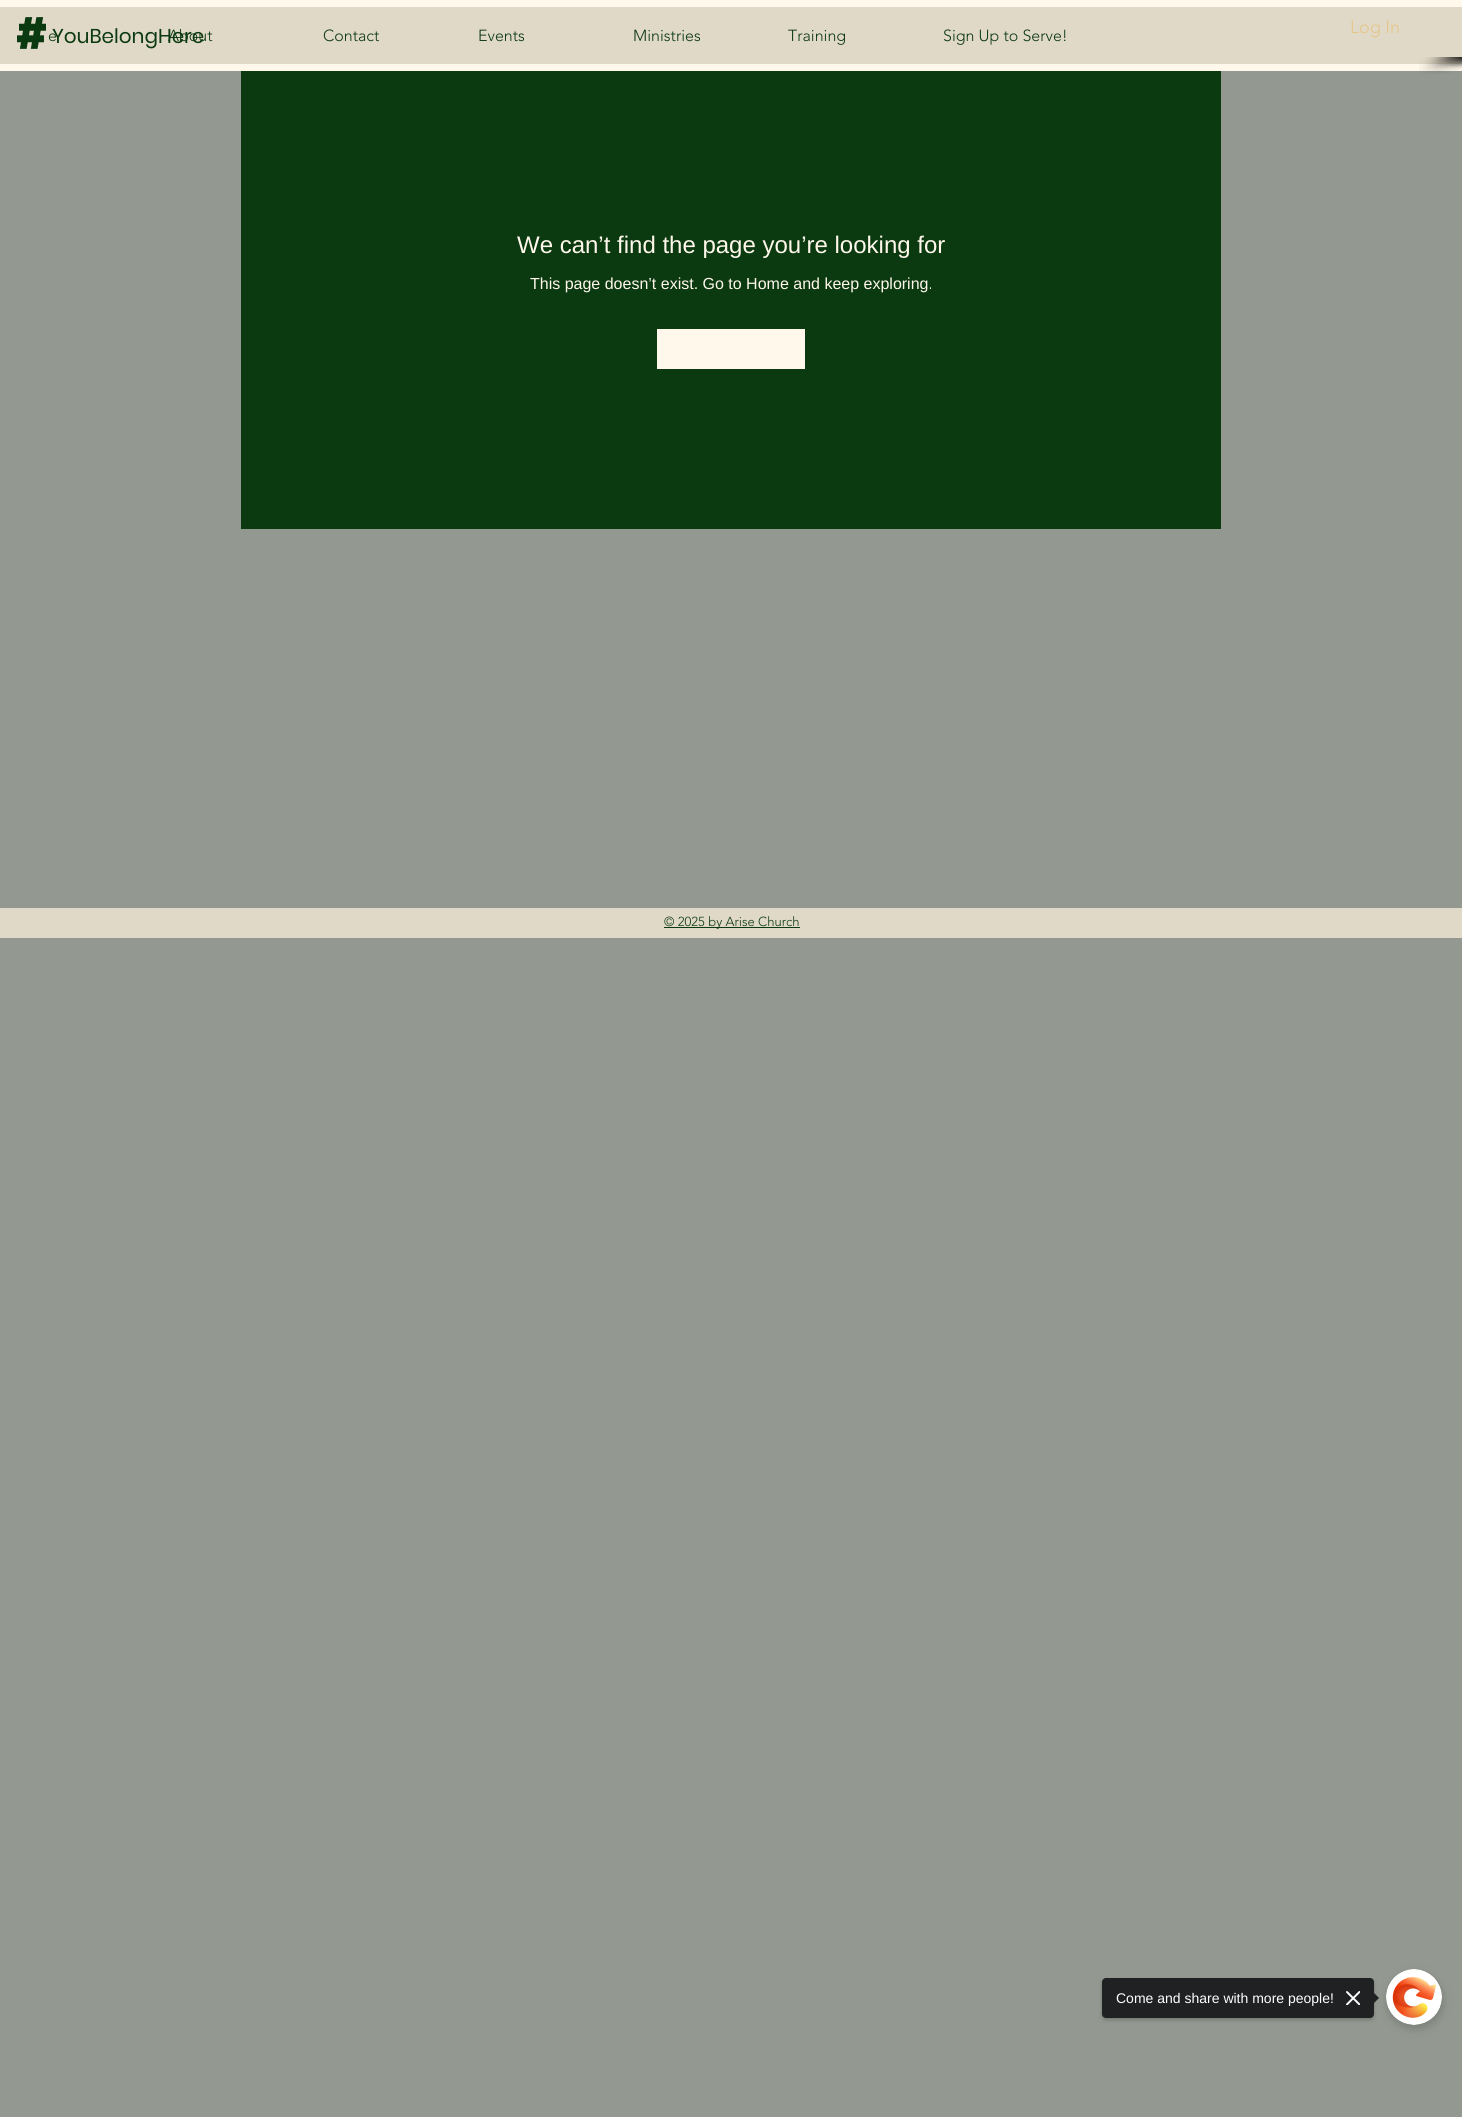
import math
import cairocffi as cairo

surface = cairo.ImageSurface(cairo.FORMAT_RGB24, 1462, 2117)
ctx = cairo.Context(surface)
options = cairo.FontOptions()
options.set_hint_metrics(cairo.HINT_METRICS_OFF)
options.set_hint_style(cairo.HINT_STYLE_NONE)
ctx.set_font_options(options)
ctx.set_miter_limit(4)


def rgb(r, g, b):
    ctx.set_source_rgb(r / 255, g / 255, b / 255)


def face(family, size, italic, bold):
    ctx.select_font_face(family, cairo.FONT_SLANT_ITALIC if italic else cairo.FONT_SLANT_NORMAL, cairo.FONT_WEIGHT_BOLD if bold else cairo.FONT_WEIGHT_NORMAL)
    ctx.set_font_size(size)


def label(x, y, s):
    ctx.move_to(x, y)
    ctx.show_text(s)


def rect(x, y, w, h):
    ctx.rectangle(x, y, w, h)
    ctx.fill()


def rrect(x, y, w, h, r):
    ctx.new_sub_path()
    for i, (u, v) in enumerate([(x + w - r, y + h - r), (x + r, y + h - r), (x + r, y + r), (x + w - r, y + r)]):
        ctx.arc(u, v, r, i * math.pi / 2, (i + 1) * math.pi / 2)
    ctx.close_path()


def soft_shadow(x, y, w, h, r, blur, alpha):
    ctx.push_group_with_content(cairo.CONTENT_ALPHA)
    ctx.set_operator(cairo.OPERATOR_SOURCE)
    for i in range(15, -16, -2):
        e = blur * i / 6
        if min(w, h) + 2 * e > 0:
            ctx.set_source_rgba(0, 0, 0, alpha * math.erfc((i - 1) / 8.5) / 2)
            rrect(x - e, y - e, w + 2 * e, h + 2 * e, max(0, min(r + e + blur * .6, min(w, h) / 2 + e)))
            ctx.fill()
    ctx.mask(ctx.pop_group())


def image(path, x, y, w, h):
    ctx.save()
    ctx.set_source_surface(cairo.ImageSurface.create_from_png(path), x, y)
    ctx.rectangle(x, y, w, h)
    ctx.fill()
    ctx.restore()


rgb(147, 153, 145)
ctx.paint()
rgb(255, 248, 235)
rect(0, 0, 1462, 7)
rect(0, 64, 1462, 7)
rgb(225, 217, 199)
rect(0, 7, 1462, 57)
face('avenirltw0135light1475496 Light', 16, 0, 0)
rgb(11, 57, 16)
label(48, 41, 'e')
label(168, 41, 'About')
label(323, 41, 'Contact')
label(478, 41, 'Events')
label(633, 41, 'Ministries')
label(788, 41, 'Training')
label(943, 41, 'Sign Up to Serve!')
face('avenirltw0135light1475496 Light', 18, 0, 0)
rgb(228, 197, 138)
label(1350, 33, 'Log In')
image('image0.png', 1419, 57, 43, 17)
image('image1.png', 17, 17, 29, 32)
face('Poppins', 20, 0, 0)
rgb(11, 57, 16)
label(52, 43, 'YouBelongHere')
rect(241, 71, 980, 458)
face('Liberation Sans', 24, 0, 0)
rgb(255, 248, 235)
label(517, 253, 'We can’t find the page you’re looking for')
face('Liberation Sans', 16, 0, 0)
label(530, 289, 'This page doesn’t exist. Go to Home and keep exploring.')
rect(657, 329, 148, 40)
rgb(225, 217, 199)
rect(0, 908, 1462, 30)
rgb(11, 57, 16)
rect(664, 927, 136, 1)
face('avenirltw0135light1475496 Light', 13, 0, 0)
label(664, 926, '© 2025 by Arise Church')
rgb(0, 0, 0)
soft_shadow(1387, 1973, 56, 56, 28, 4.5, 0.17)
soft_shadow(1102, 1980, 272, 40, 4, 2, 0.22)
rgb(32, 33, 35)
rrect(1102, 1978, 272, 40, 4)
ctx.fill()
face('Liberation Sans', 14, 0, 0)
rgb(255, 255, 255)
label(1116, 2003, 'Come and share with more people!')
image('image2.png', 1346, 1991, 14, 14)
rgb(32, 33, 35)
ctx.new_path()
ctx.move_to(1372, 2005)
ctx.line_to(1372, 1991)
ctx.line_to(1379, 1998)
ctx.close_path()
ctx.fill()
image('image3.png', 1386, 1969, 56, 56)
surface.write_to_png('render.png')
